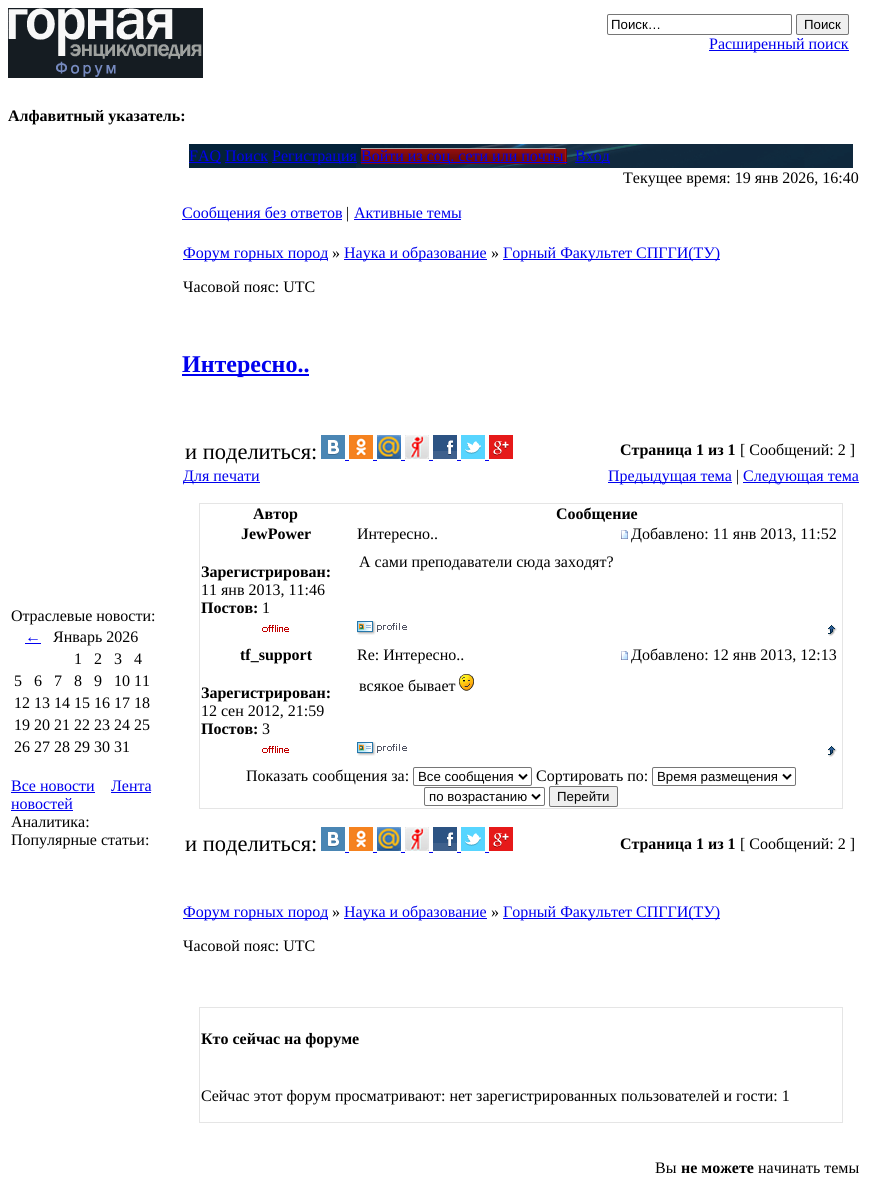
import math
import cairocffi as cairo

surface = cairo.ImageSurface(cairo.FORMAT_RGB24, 871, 1178)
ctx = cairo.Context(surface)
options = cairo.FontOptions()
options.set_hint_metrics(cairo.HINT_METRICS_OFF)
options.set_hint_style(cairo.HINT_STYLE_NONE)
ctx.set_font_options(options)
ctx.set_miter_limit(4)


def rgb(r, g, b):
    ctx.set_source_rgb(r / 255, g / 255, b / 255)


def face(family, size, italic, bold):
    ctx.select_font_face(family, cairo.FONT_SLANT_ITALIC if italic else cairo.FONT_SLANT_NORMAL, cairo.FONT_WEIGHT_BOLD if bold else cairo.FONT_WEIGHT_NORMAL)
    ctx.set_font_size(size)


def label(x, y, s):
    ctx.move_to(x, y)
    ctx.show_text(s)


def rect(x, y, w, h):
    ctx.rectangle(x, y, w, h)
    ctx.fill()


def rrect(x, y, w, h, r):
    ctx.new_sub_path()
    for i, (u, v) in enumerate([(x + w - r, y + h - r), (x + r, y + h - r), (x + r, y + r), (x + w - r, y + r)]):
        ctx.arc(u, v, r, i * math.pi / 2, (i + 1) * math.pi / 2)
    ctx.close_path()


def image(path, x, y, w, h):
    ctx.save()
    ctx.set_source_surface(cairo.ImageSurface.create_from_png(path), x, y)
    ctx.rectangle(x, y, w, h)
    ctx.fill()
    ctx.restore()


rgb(255, 255, 255)
ctx.paint()
image('image0.png', 8, 8, 195, 70)
rrect(607.5, 14.5, 184, 20, 1.5)
rgb(118, 118, 118)
ctx.set_line_width(1)
ctx.stroke()
face('Liberation Sans', 13.25, 0, 0)
rgb(0, 0, 0)
label(611, 29, 'Поиск…')
rgb(239, 239, 239)
rrect(796.5, 14.5, 52, 20, 1.5)
ctx.fill_preserve()
rgb(118, 118, 118)
ctx.stroke()
rgb(0, 0, 0)
label(804, 29, 'Поиск')
rgb(0, 0, 238)
rect(709, 50, 140, 1)
face('Liberation Serif', 16, 0, 0)
label(709, 49, 'Расширенный поиск')
face('Liberation Serif', 16, 0, 1)
rgb(0, 0, 0)
label(8, 121, 'Алфавитный указатель:')
face('Liberation Serif', 16, 0, 0)
label(11, 621, 'Отраслевые новости:')
rgb(0, 0, 238)
label(25, 642, '←')
rect(25, 643, 16, 1)
rgb(0, 0, 0)
label(53, 642, 'Январь 2026')
label(74, 664, '1')
label(94, 664, '2')
label(114, 664, '3')
label(134, 664, '4')
label(14, 686, '5')
label(34, 686, '6')
label(54, 686, '7')
label(74, 686, '8')
label(94, 686, '9')
label(114, 686, '10 11')
label(14, 708, '12 13 14 15 16 17 18')
label(14, 730, '19 20 21 22 23 24 25')
label(14, 752, '26 27 28 29 30 31')
rgb(0, 0, 238)
label(11, 791, 'Все новости')
rect(11, 792, 84, 1)
label(111, 791, 'Лента')
rect(111, 792, 40, 1)
label(11, 809, 'новостей')
rect(11, 810, 62, 1)
rgb(0, 0, 0)
label(11, 827, 'Аналитика:')
label(11, 845, 'Популярные статьи:')
rgb(4, 34, 57)
rect(189, 144, 167, 24)
image('image1.png', 356, 144, 497, 24)
rgb(0, 0, 238)
rect(189, 162, 32, 1)
label(189, 161, 'FAQ Поиск')
rect(225, 162, 43, 1)
rect(272, 162, 85, 1)
label(272, 161, 'Регистрация')
image('image2.png', 360, 148, 208, 16)
rect(447, 162, 4, 1)
label(361, 161, 'Войти из соц. сети или почты')
rect(575, 162, 35, 1)
label(575, 161, 'Вход')
rgb(0, 0, 0)
label(623, 183, 'Текущее время: 19 янв 2026, 16:40')
rgb(0, 0, 238)
rect(182, 219, 160, 1)
label(182, 218, 'Сообщения без ответов')
rgb(0, 0, 0)
label(346, 218, '|')
rgb(0, 0, 238)
label(354, 218, 'Активные темы')
rect(354, 219, 107, 1)
rect(183, 259, 145, 1)
label(183, 258, 'Форум горных пород')
rgb(0, 0, 0)
label(332, 258, '»')
rgb(0, 0, 238)
rect(344, 259, 143, 1)
label(344, 258, 'Наука и образование')
rgb(0, 0, 0)
label(491, 258, '»')
rgb(0, 0, 238)
rect(503, 259, 217, 1)
label(503, 258, 'Горный Факультет СПГГИ(ТУ)')
rgb(0, 0, 0)
label(183, 292, 'Часовой пояс: UTC')
rgb(0, 0, 238)
rect(182, 374, 127, 2)
face('Liberation Serif', 24, 0, 1)
label(182, 372, 'Интересно..')
face('Liberation Serif', 22.5, 0, 0)
rgb(0, 0, 0)
label(185, 459, 'и поделиться:')
image('image3.png', 321, 435, 24, 24)
rgb(0, 0, 238)
rect(345, 460, 4, 1)
image('image4.png', 349, 435, 24, 24)
rect(373, 460, 4, 1)
image('image5.png', 377, 435, 24, 24)
rect(401, 460, 4, 1)
image('image6.png', 405, 435, 24, 24)
rect(429, 460, 4, 1)
image('image7.png', 433, 435, 24, 24)
rect(457, 460, 4, 1)
image('image8.png', 461, 435, 24, 24)
rect(485, 460, 4, 1)
image('image9.png', 489, 435, 24, 24)
face('Liberation Serif', 16, 0, 1)
rgb(0, 0, 0)
label(620, 455, 'Страница 1 из 1')
face('Liberation Serif', 16, 0, 0)
label(740, 455, '[ Сообщений: 2 ]')
rgb(0, 0, 238)
rect(183, 482, 77, 1)
label(183, 481, 'Для печати')
rect(608, 482, 124, 1)
label(608, 481, 'Предыдущая тема')
rgb(0, 0, 0)
label(736, 481, '|')
rgb(0, 0, 238)
rect(743, 482, 116, 1)
label(743, 481, 'Следующая тема')
rgb(229, 229, 229)
rect(200, 503, 642, 1)
rect(199, 503, 1, 305)
face('Liberation Serif', 16, 0, 1)
rgb(0, 0, 0)
label(253, 519, 'Автор')
label(556, 519, 'Сообщение')
label(241, 539, 'JewPower')
face('Liberation Serif', 16, 0, 0)
label(357, 539, 'Интересно..')
image('image10.png', 621, 530, 7, 9)
label(631, 539, 'Добавлено: 11 янв 2013, 11:52')
label(359, 567, 'А сами преподаватели сюда заходят?')
face('Liberation Serif', 16, 0, 1)
label(201, 577, 'Зарегистрирован:')
face('Liberation Serif', 16, 0, 0)
label(201, 595, '11 янв 2013, 11:46')
face('Liberation Serif', 16, 0, 1)
label(201, 613, 'Постов:')
face('Liberation Serif', 16, 0, 0)
label(262, 613, '1')
image('image11.png', 262, 625, 27, 7)
image('image12.png', 357, 621, 50, 14)
image('image13.png', 828, 625, 9, 11)
face('Liberation Serif', 16, 0, 1)
label(240, 660, 'tf_support')
face('Liberation Serif', 16, 0, 0)
label(357, 660, 'Re: Интересно..')
image('image10.png', 621, 651, 7, 9)
label(631, 660, 'Добавлено: 12 янв 2013, 12:13')
label(359, 691, 'всякое бывает')
image('image14.png', 459, 674, 15, 17)
face('Liberation Serif', 16, 0, 1)
label(201, 698, 'Зарегистрирован:')
face('Liberation Serif', 16, 0, 0)
label(201, 716, '12 сен 2012, 21:59')
face('Liberation Serif', 16, 0, 1)
label(201, 734, 'Постов:')
face('Liberation Serif', 16, 0, 0)
label(262, 734, '3')
image('image11.png', 262, 746, 27, 7)
image('image12.png', 357, 742, 50, 14)
image('image13.png', 828, 746, 9, 11)
label(246, 781, 'Показать сообщения за:')
rrect(413.5, 767.5, 118, 18, 1.5)
rgb(118, 118, 118)
ctx.stroke()
ctx.new_path()
ctx.move_to(519, 774.5)
ctx.line_to(523, 778.5)
ctx.line_to(527, 774.5)
rgb(0, 0, 0)
ctx.set_line_width(2)
ctx.stroke()
face('Liberation Sans', 13.25, 0, 0)
label(418, 781, 'Все сообщения')
face('Liberation Serif', 16, 0, 0)
label(536, 781, 'Сортировать по:')
rrect(652.5, 767.5, 143, 18, 1.5)
rgb(118, 118, 118)
ctx.set_line_width(1)
ctx.stroke()
ctx.new_path()
ctx.move_to(783, 774.5)
ctx.line_to(787, 778.5)
ctx.line_to(791, 774.5)
rgb(0, 0, 0)
ctx.set_line_width(2)
ctx.stroke()
face('Liberation Sans', 13.25, 0, 0)
label(657, 781, 'Время размещения')
rrect(424.5, 787.5, 120, 18, 1.5)
rgb(118, 118, 118)
ctx.set_line_width(1)
ctx.stroke()
ctx.new_path()
ctx.move_to(532, 794.5)
ctx.line_to(536, 798.5)
ctx.line_to(540, 794.5)
rgb(0, 0, 0)
ctx.set_line_width(2)
ctx.stroke()
label(429, 801, 'по возрастанию')
rgb(239, 239, 239)
rrect(549.5, 786.5, 68, 20, 1.5)
ctx.fill_preserve()
rgb(118, 118, 118)
ctx.set_line_width(1)
ctx.stroke()
rgb(0, 0, 0)
label(557, 801, 'Перейти')
rgb(229, 229, 229)
rect(842, 503, 1, 305)
rect(199, 808, 644, 1)
face('Liberation Serif', 22.5, 0, 0)
rgb(0, 0, 0)
label(185, 851, 'и поделиться:')
image('image3.png', 321, 827, 24, 24)
rgb(0, 0, 238)
rect(345, 852, 4, 1)
image('image4.png', 349, 827, 24, 24)
rect(373, 852, 4, 1)
image('image5.png', 377, 827, 24, 24)
rect(401, 852, 4, 1)
image('image6.png', 405, 827, 24, 24)
rect(429, 852, 4, 1)
image('image7.png', 433, 827, 24, 24)
rect(457, 852, 4, 1)
image('image8.png', 461, 827, 24, 24)
rect(485, 852, 4, 1)
image('image9.png', 489, 827, 24, 24)
face('Liberation Serif', 16, 0, 1)
rgb(0, 0, 0)
label(620, 849, 'Страница 1 из 1')
face('Liberation Serif', 16, 0, 0)
label(740, 849, '[ Сообщений: 2 ]')
rgb(0, 0, 238)
rect(183, 918, 145, 1)
label(183, 917, 'Форум горных пород')
rgb(0, 0, 0)
label(332, 917, '»')
rgb(0, 0, 238)
rect(344, 918, 143, 1)
label(344, 917, 'Наука и образование')
rgb(0, 0, 0)
label(491, 917, '»')
rgb(0, 0, 238)
rect(503, 918, 217, 1)
label(503, 917, 'Горный Факультет СПГГИ(ТУ)')
rgb(0, 0, 0)
label(183, 951, 'Часовой пояс: UTC')
rgb(229, 229, 229)
rect(200, 1007, 642, 1)
rect(199, 1007, 1, 115)
face('Liberation Serif', 16, 0, 1)
rgb(0, 0, 0)
label(201, 1044, 'Кто сейчас на форуме')
face('Liberation Serif', 16, 0, 0)
label(201, 1101, 'Сейчас этот форум просматривают: нет зарегистрированных пользователей и гости: 1')
rgb(229, 229, 229)
rect(842, 1007, 1, 115)
rect(199, 1122, 644, 1)
rgb(0, 0, 0)
label(655, 1173, 'Вы')
face('Liberation Serif', 16, 0, 1)
label(681, 1173, 'не можете')
face('Liberation Serif', 16, 0, 0)
label(758, 1173, 'начинать темы')
surface.write_to_png('render.png')
